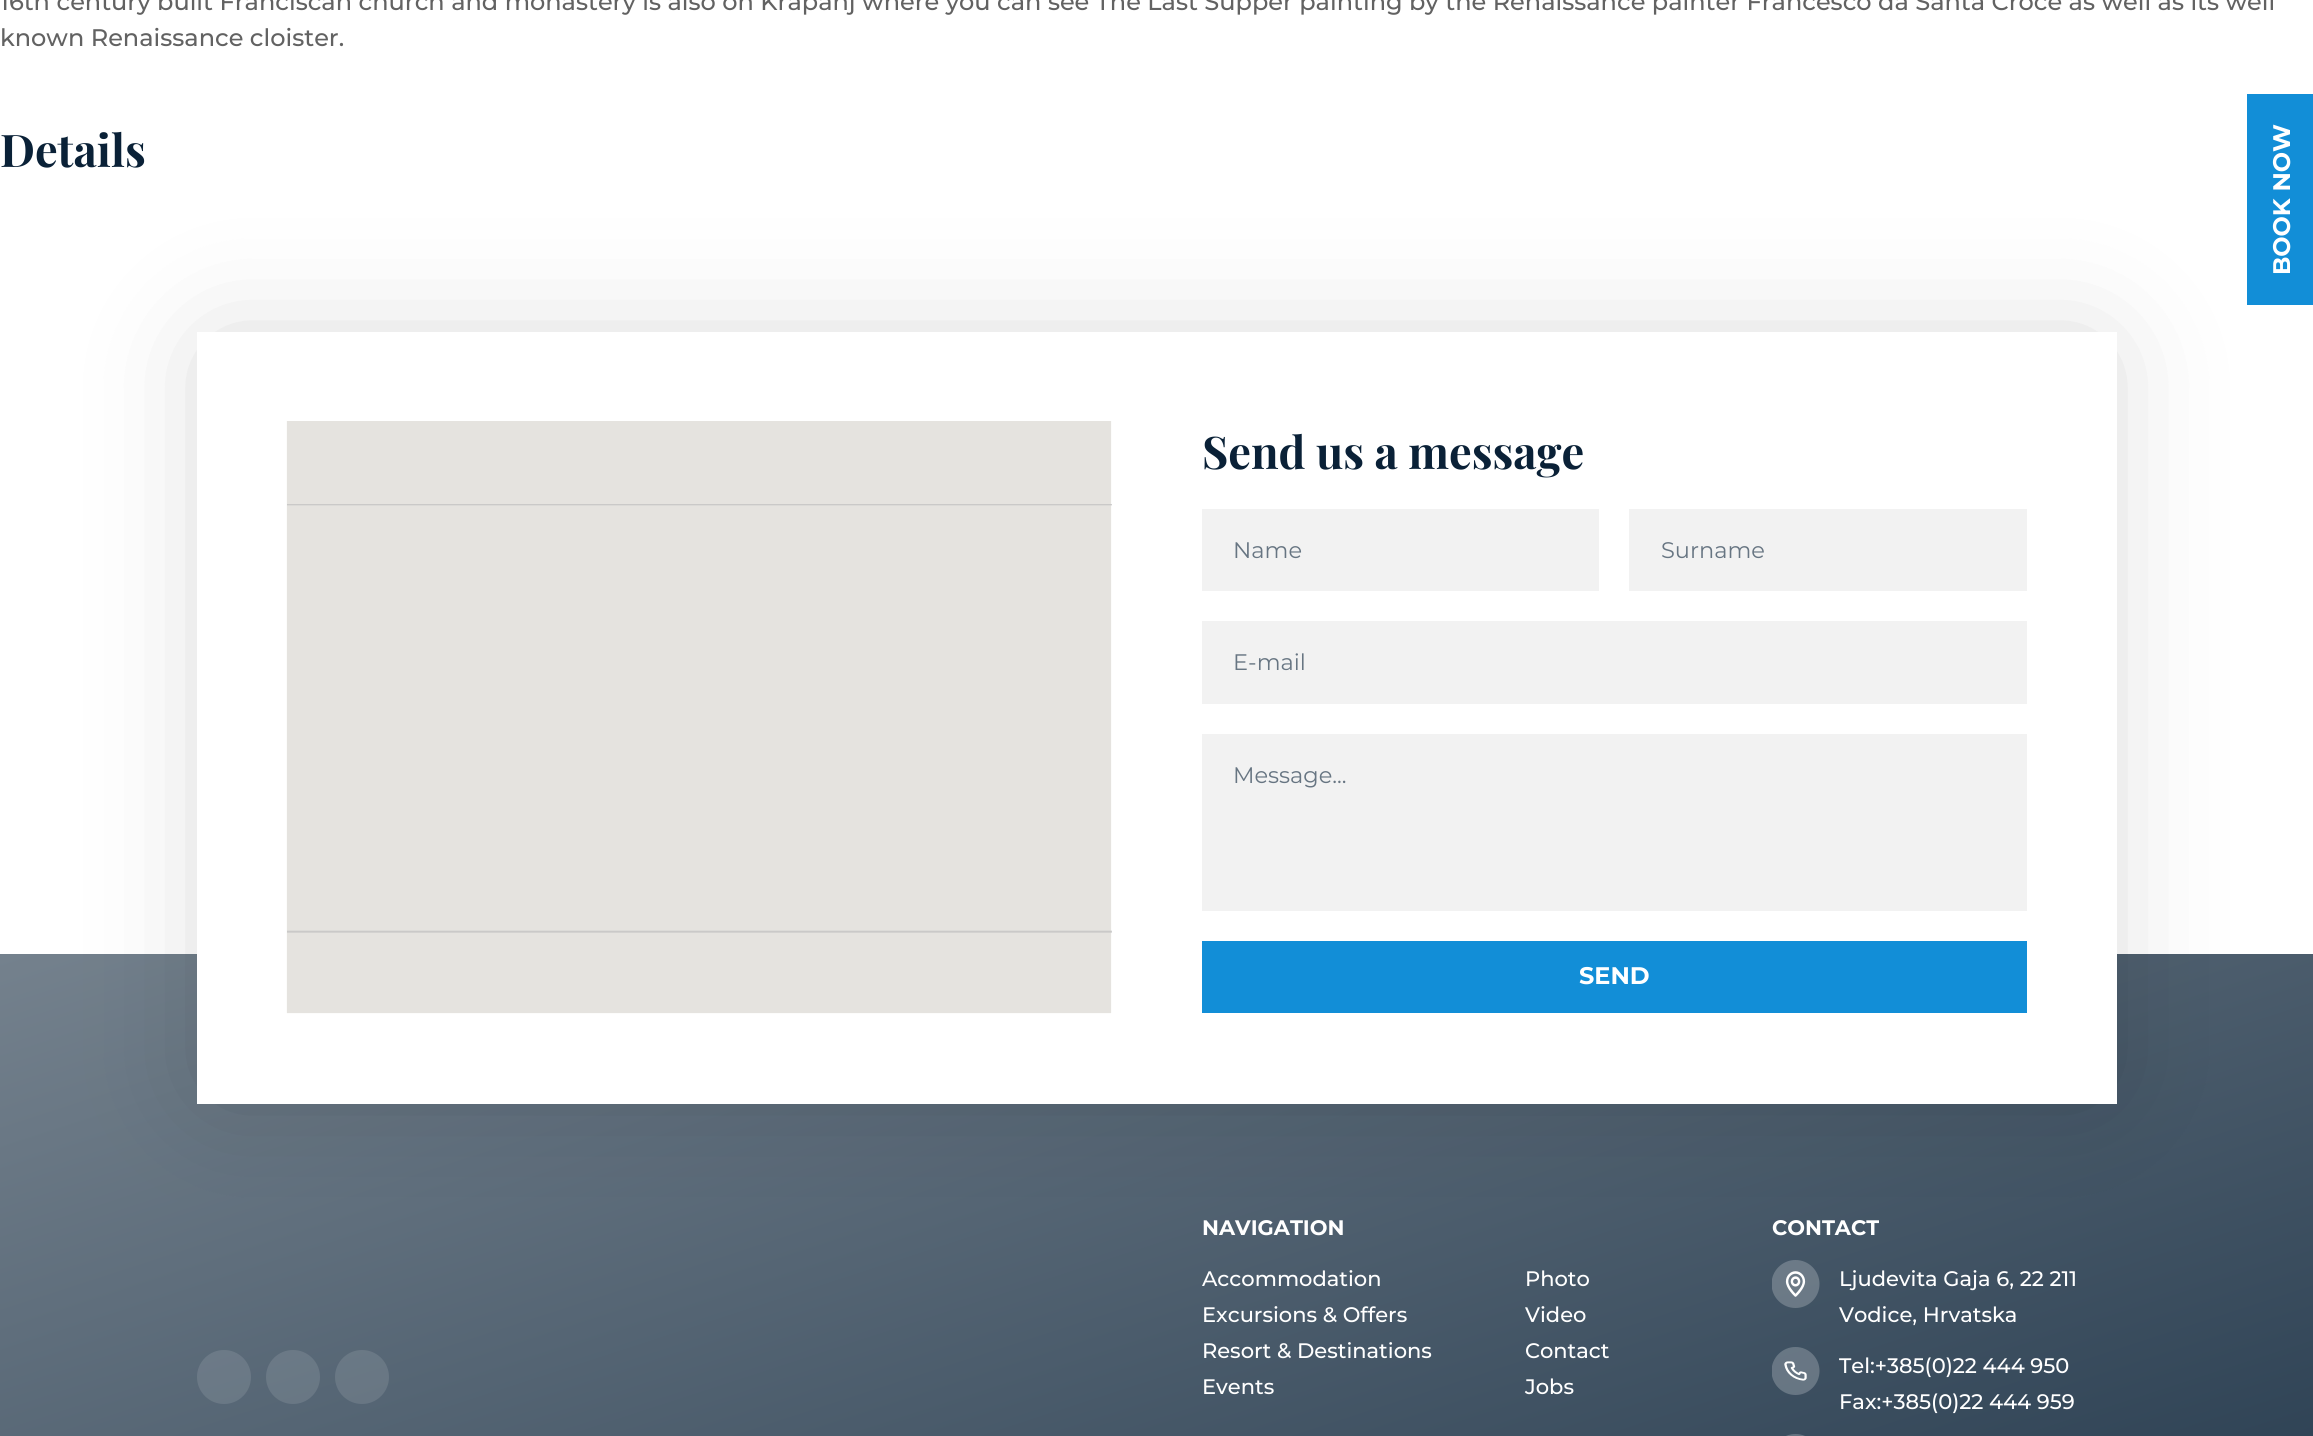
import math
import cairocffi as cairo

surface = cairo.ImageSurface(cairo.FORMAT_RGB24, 2313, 1436)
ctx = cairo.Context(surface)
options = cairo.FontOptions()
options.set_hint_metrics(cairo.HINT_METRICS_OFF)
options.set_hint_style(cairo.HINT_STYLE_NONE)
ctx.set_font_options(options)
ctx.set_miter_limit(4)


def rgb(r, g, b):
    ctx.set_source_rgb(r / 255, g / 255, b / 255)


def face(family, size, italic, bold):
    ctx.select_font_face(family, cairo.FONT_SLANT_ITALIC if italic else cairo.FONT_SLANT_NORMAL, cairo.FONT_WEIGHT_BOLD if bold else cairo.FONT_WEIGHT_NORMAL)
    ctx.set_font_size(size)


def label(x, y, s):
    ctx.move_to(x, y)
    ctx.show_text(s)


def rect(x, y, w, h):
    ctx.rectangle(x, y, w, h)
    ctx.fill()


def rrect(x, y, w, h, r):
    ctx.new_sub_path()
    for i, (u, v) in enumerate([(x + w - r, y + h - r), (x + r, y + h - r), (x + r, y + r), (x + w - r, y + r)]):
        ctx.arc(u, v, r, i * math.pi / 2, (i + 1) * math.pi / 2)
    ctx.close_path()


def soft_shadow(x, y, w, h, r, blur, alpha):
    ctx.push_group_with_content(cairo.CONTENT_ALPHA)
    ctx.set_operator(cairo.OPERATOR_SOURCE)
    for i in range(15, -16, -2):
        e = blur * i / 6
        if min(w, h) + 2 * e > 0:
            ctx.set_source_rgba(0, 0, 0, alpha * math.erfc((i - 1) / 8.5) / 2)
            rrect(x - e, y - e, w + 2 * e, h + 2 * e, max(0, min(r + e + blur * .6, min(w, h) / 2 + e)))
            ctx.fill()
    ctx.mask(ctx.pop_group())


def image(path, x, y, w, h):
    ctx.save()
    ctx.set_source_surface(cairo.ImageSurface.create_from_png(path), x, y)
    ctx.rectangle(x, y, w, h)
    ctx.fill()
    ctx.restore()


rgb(255, 255, 255)
ctx.paint()
face('Montserrat Medium', 24, 0, 0)
rgb(98, 98, 98)
label(0, 10, '16th century built Franciscan church and monastery is also on Krapanj where you can see The Last Supper painting by the Renaissance painter Francesco da Santa Croce as well as its well')
label(0, 46, 'known Renaissance cloister.')
face('Playfair Display', 45, 0, 1)
rgb(10, 33, 55)
label(0, 167, 'Details')
gradient = cairo.LinearGradient(1395, 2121, 918, 656)
gradient.add_color_stop_rgba(0, 0.106, 0.192, 0.271, 1)
gradient.add_color_stop_rgba(1, 0.455, 0.506, 0.553, 1)
ctx.set_source(gradient)
rect(0, 954, 2313, 482)
image('image1.png', 1772, 1260, 48, 48)
rgb(0, 0, 0)
soft_shadow(216, 351, 1881, 734, 0, 61.5, 0.18)
rgb(18, 142, 215)
rect(2247, 94, 66, 211)
face('Montserrat', 24, 0, 1)
rgb(255, 255, 255)
ctx.save()
ctx.translate(2290, 275)
ctx.rotate(-90 * math.pi / 180)
label(0, 0, 'BOOK NOW')
ctx.restore()
rect(197, 332, 1920, 772)
image('image0.png', 286, 421, 826, 593)
face('Playfair Display', 45, 0, 1)
rgb(10, 33, 55)
label(1202, 469, 'Send us a message')
rgb(242, 242, 242)
rect(1202, 509, 397, 82)
face('Montserrat', 22.5, 0, 0)
rgb(103, 117, 130)
label(1233, 558, 'Name')
rgb(242, 242, 242)
rect(1629, 509, 398, 82)
rgb(103, 117, 130)
label(1661, 558, 'Surname')
rgb(242, 242, 242)
rect(1202, 621, 825, 83)
rgb(103, 117, 130)
label(1233, 670, 'E-mail')
rgb(242, 242, 242)
rect(1202, 734, 825, 177)
rgb(103, 117, 130)
label(1233, 783, 'Message...')
rgb(18, 142, 215)
rect(1202, 941, 825, 72)
face('Montserrat', 24, 0, 1)
rgb(255, 255, 255)
label(1579, 984, 'SEND')
ctx.set_source_rgba(1, 1, 1, 0.11)
ctx.new_path()
ctx.arc(224, 1377, 27, 0, 2 * math.pi)
ctx.fill()
ctx.arc(293, 1377, 27, 0, 2 * math.pi)
ctx.fill()
ctx.arc(362, 1377, 27, 0, 2 * math.pi)
ctx.fill()
face('Montserrat', 21, 0, 1)
rgb(255, 255, 255)
label(1202, 1235, 'NAVIGATION')
face('Montserrat Medium', 21, 0, 0)
label(1202, 1286, 'Accommodation')
label(1202, 1322, 'Excursions & Offers')
label(1202, 1358, 'Resort & Destinations')
label(1202, 1394, 'Events')
label(1525, 1286, 'Photo')
label(1525, 1322, 'Video')
label(1525, 1358, 'Contact')
label(1525, 1394, 'Jobs')
face('Montserrat', 21, 0, 1)
label(1772, 1235, 'CONTACT')
face('Montserrat Medium', 21, 0, 0)
label(1839, 1286, 'Ljudevita Gaja 6, 22 211')
label(1839, 1322, 'Vodice, Hrvatska')
image('image2.png', 1772, 1347, 48, 48)
label(1839, 1373, 'Tel:+385(0)22 444 950')
label(1839, 1409, 'Fax:+385(0)22 444 959')
image('image3.png', 1786, 1434, 19, 2)
surface.write_to_png('render.png')
